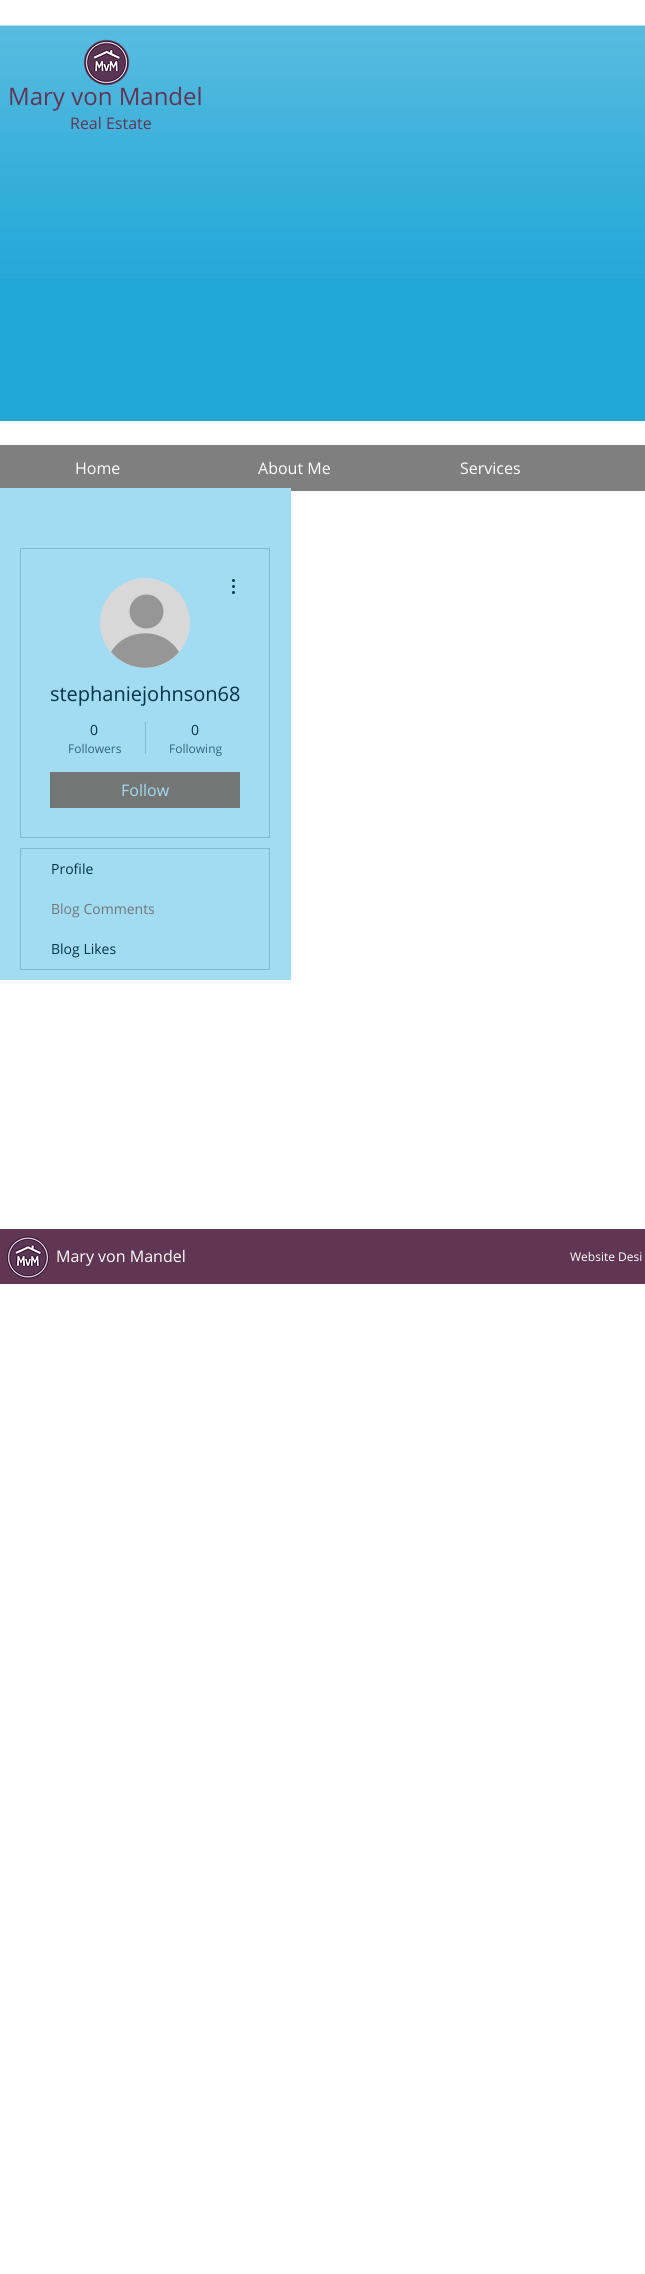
import math
import cairocffi as cairo

surface = cairo.ImageSurface(cairo.FORMAT_RGB24, 645, 2274)
ctx = cairo.Context(surface)
options = cairo.FontOptions()
options.set_hint_metrics(cairo.HINT_METRICS_OFF)
options.set_hint_style(cairo.HINT_STYLE_NONE)
ctx.set_font_options(options)
ctx.set_miter_limit(4)


def rgb(r, g, b):
    ctx.set_source_rgb(r / 255, g / 255, b / 255)


def face(family, size, italic, bold):
    ctx.select_font_face(family, cairo.FONT_SLANT_ITALIC if italic else cairo.FONT_SLANT_NORMAL, cairo.FONT_WEIGHT_BOLD if bold else cairo.FONT_WEIGHT_NORMAL)
    ctx.set_font_size(size)


def label(x, y, s):
    ctx.move_to(x, y)
    ctx.show_text(s)


def rect(x, y, w, h):
    ctx.rectangle(x, y, w, h)
    ctx.fill()


def image(path, x, y, w, h):
    ctx.save()
    ctx.set_source_surface(cairo.ImageSurface.create_from_png(path), x, y)
    ctx.rectangle(x, y, w, h)
    ctx.fill()
    ctx.restore()


rgb(255, 255, 255)
ctx.paint()
rgb(249, 249, 249)
rect(0, 421, 645, 3)
rgb(32, 166, 215)
rect(0, 26, 645, 395)
image('image0.png', 0, 26, 645, 253)
rgb(183, 224, 238)
rect(0, 25, 645, 1)
image('image1.png', 83, 39, 47, 47)
face('Open Sans', 24, 0, 0)
rgb(96, 54, 83)
label(8, 105, 'Mary von Mandel')
face('Open Sans', 16, 0, 0)
label(70, 129, 'Real Estate')
rgb(127, 127, 127)
rect(0, 445, 645, 46)
rgb(255, 255, 255)
label(75, 474, 'Home')
label(258, 474, 'About Me')
label(460, 474, 'Services')
rgb(161, 220, 242)
rect(0, 488, 291, 492)
ctx.rectangle(20.5, 548.5, 249, 289)
rgb(129, 186, 208)
ctx.set_line_width(1)
ctx.stroke()
rgb(216, 216, 216)
ctx.arc(145, 623, 45, 0, 2 * math.pi)
ctx.fill()
rgb(150, 150, 150)
ctx.arc(146.5, 611.5, 17, 0, 2 * math.pi)
ctx.fill()
ctx.new_path()
ctx.move_to(179, 652)
ctx.curve_to(161, 673, 129, 673, 111, 652)
ctx.curve_to(126, 627, 164, 627, 179, 652)
ctx.close_path()
ctx.fill()
image('image2.png', 232, 579, 3, 15)
face('Open Sans', 20, 0, 0)
rgb(0, 52, 72)
label(50, 701, 'stephaniejohnson68')
face('Open Sans', 14, 0, 0)
label(90, 735, '0')
face('Open Sans', 12, 0, 0)
rgb(48, 102, 123)
label(68, 753, 'Followers')
rgb(129, 186, 208)
rect(145, 722, 1, 32)
face('Open Sans', 14, 0, 0)
rgb(0, 52, 72)
label(191, 735, '0')
face('Open Sans', 12, 0, 0)
rgb(48, 102, 123)
label(169, 753, 'Following')
rgb(116, 117, 117)
rect(50, 772, 190, 36)
face('Open Sans', 16, 0, 0)
rgb(161, 220, 242)
label(121, 796, 'Follow')
ctx.rectangle(20.5, 848.5, 249, 121)
rgb(129, 186, 208)
ctx.stroke()
face('Open Sans', 14, 0, 0)
rgb(0, 52, 72)
label(51, 874, 'Profile')
rgb(116, 117, 117)
label(51, 914, 'Blog Comments')
rgb(0, 52, 72)
label(51, 954, 'Blog Likes')
rgb(96, 54, 83)
rect(0, 1229, 645, 55)
image('image3.png', 6, 1236, 44, 43)
face('Open Sans', 16, 0, 0)
rgb(255, 255, 255)
label(56, 1262, 'Mary von Mandel')
face('Open Sans', 12, 0, 0)
label(570, 1261, 'Website Desi')
surface.write_to_png('render.png')
